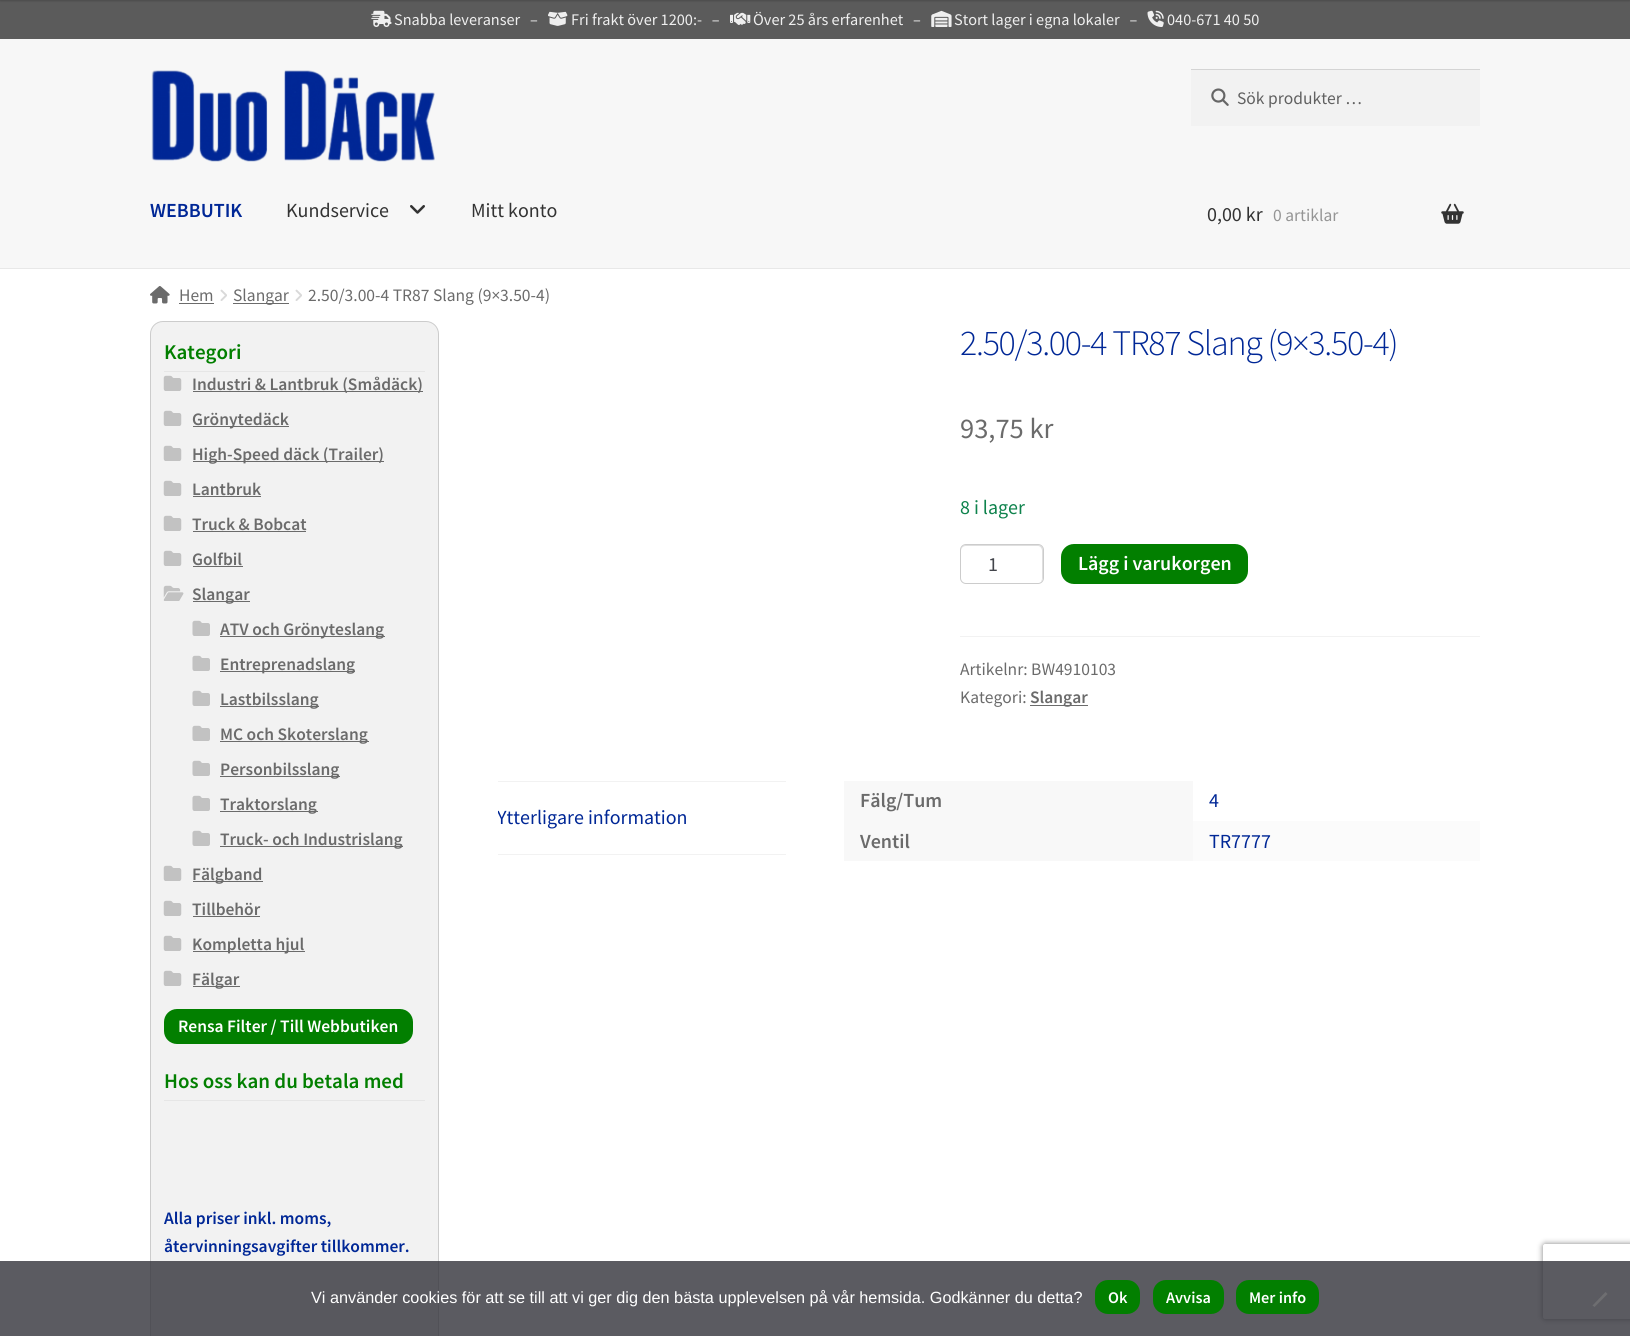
import math
import cairocffi as cairo

surface = cairo.ImageSurface(cairo.FORMAT_RGB24, 1630, 1336)
ctx = cairo.Context(surface)
options = cairo.FontOptions()
options.set_hint_metrics(cairo.HINT_METRICS_OFF)
options.set_hint_style(cairo.HINT_STYLE_NONE)
ctx.set_font_options(options)
ctx.set_miter_limit(4)


def rgb(r, g, b):
    ctx.set_source_rgb(r / 255, g / 255, b / 255)


def face(family, size, italic, bold):
    ctx.select_font_face(family, cairo.FONT_SLANT_ITALIC if italic else cairo.FONT_SLANT_NORMAL, cairo.FONT_WEIGHT_BOLD if bold else cairo.FONT_WEIGHT_NORMAL)
    ctx.set_font_size(size)


def label(x, y, s):
    ctx.move_to(x, y)
    ctx.show_text(s)


def tracked(x, y, s, letter, word):
    ctx.move_to(x, y)
    for ch in s:
        ctx.show_text(ch)
        ctx.rel_move_to(letter + word * (ch == ' '), 0)


def rect(x, y, w, h):
    ctx.rectangle(x, y, w, h)
    ctx.fill()


def rrect(x, y, w, h, r):
    ctx.new_sub_path()
    for i, (u, v) in enumerate([(x + w - r, y + h - r), (x + r, y + h - r), (x + r, y + r), (x + w - r, y + r)]):
        ctx.arc(u, v, r, i * math.pi / 2, (i + 1) * math.pi / 2)
    ctx.close_path()


def soft_shadow(x, y, w, h, r, blur, alpha):
    ctx.push_group_with_content(cairo.CONTENT_ALPHA)
    ctx.set_operator(cairo.OPERATOR_SOURCE)
    for i in range(15, -16, -2):
        e = blur * i / 6
        if min(w, h) + 2 * e > 0:
            ctx.set_source_rgba(0, 0, 0, alpha * math.erfc((i - 1) / 8.5) / 2)
            rrect(x - e, y - e, w + 2 * e, h + 2 * e, max(0, min(r + e + blur * .6, min(w, h) / 2 + e)))
            ctx.fill()
    ctx.mask(ctx.pop_group())


def image(path, x, y, w, h):
    ctx.save()
    ctx.set_source_surface(cairo.ImageSurface.create_from_png(path), x, y)
    ctx.rectangle(x, y, w, h)
    ctx.fill()
    ctx.restore()


rgb(255, 255, 255)
ctx.paint()
rgb(91, 91, 91)
rect(0, 0, 1630, 39)
rgb(0, 0, 0)
soft_shadow(0, -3, 1630, 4, 0, 1, 0.2)
image('image0.png', 371, 10, 21, 17)
face('Source Sans Pro', 16.25, 0, 0)
rgb(239, 239, 239)
label(394, 25, 'Snabba leveranser   –')
image('image1.png', 548, 11, 20, 15)
label(571, 25, 'Fri frakt över 1200:-   –')
image('image2.png', 730, 12, 21, 13)
label(753, 25, 'Över 25 års erfarenhet   –')
image('image3.png', 931, 10, 21, 17)
label(954, 25, 'Stort lager i egna lokaler   –')
image('image4.png', 1147, 10, 17, 17)
label(1167, 25, '040-671 40 50')
rgb(247, 247, 247)
rect(0, 39, 1630, 229)
rgb(232, 232, 232)
rect(0, 268, 1630, 1)
image('image5.png', 151, 70, 284, 92)
rgb(242, 242, 242)
rect(1191, 70, 289, 56)
image('image6.png', 1211, 88, 18, 18)
rgb(212, 212, 212)
rect(1191, 69, 289, 1)
face('Source Sans Pro', 17.5, 0, 0)
rgb(97, 97, 97)
label(1237, 104, 'Sök produkter …')
face('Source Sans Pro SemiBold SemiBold', 20, 0, 0)
rgb(0, 39, 150)
label(150, 217, 'WEBBUTIK')
face('Source Sans Pro', 20, 0, 0)
rgb(51, 51, 51)
label(286, 217, 'Kundservice')
image('image7.png', 410, 205, 15, 9)
label(471, 217, 'Mitt konto')
label(1207, 221, '0,00 kr')
face('Source Sans Pro', 17.5, 0, 0)
rgb(149, 149, 149)
label(1273, 221, '0 artiklar')
image('image8.png', 1441, 203, 23, 21)
image('image9.png', 150, 286, 20, 18)
rgb(107, 107, 107)
label(179, 301, 'Hem')
rect(179, 303, 35, 1)
image('image10.png', 220, 289, 7, 12)
rect(233, 303, 56, 1)
label(233, 301, 'Slangar')
image('image10.png', 295, 289, 7, 12)
label(308, 301, '2.50/3.00-4 TR87 Slang (9×3.50-4)')
rgb(242, 242, 242)
rrect(150.5, 321.5, 288, 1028, 12.5)
ctx.fill_preserve()
rgb(204, 204, 204)
ctx.set_line_width(1)
ctx.stroke()
rgb(230, 230, 230)
rect(164, 371, 261, 1)
face('Source Sans Pro SemiBold SemiBold', 21, 0, 0)
rgb(2, 127, 0)
label(164, 359, 'Kategori')
image('image11.png', 163, 375, 19, 16)
rgb(107, 107, 107)
rect(193, 391, 230, 1)
face('Source Sans Pro SemiBold SemiBold', 17.5, 0, 0)
label(192, 390, 'Industri & Lantbruk (Smådäck)')
image('image11.png', 163, 410, 19, 16)
rect(193, 426, 96, 1)
label(192, 425, 'Grönytedäck')
image('image11.png', 163, 445, 19, 16)
rect(193, 461, 191, 1)
label(192, 460, 'High-Speed däck (Trailer)')
image('image11.png', 163, 480, 19, 16)
label(192, 495, 'Lantbruk')
rect(193, 496, 68, 1)
image('image11.png', 163, 515, 19, 16)
label(192, 530, 'Truck & Bobcat')
rect(193, 531, 113, 1)
image('image11.png', 163, 550, 19, 16)
label(192, 565, 'Golfbil')
rect(193, 566, 50, 1)
image('image12.png', 163, 585, 21, 16)
rect(193, 601, 57, 1)
label(192, 600, 'Slangar')
image('image13.png', 192, 620, 18, 16)
rect(220, 636, 165, 1)
label(220, 635, 'ATV och Grönyteslang')
image('image13.png', 192, 655, 18, 16)
rect(220, 671, 135, 1)
label(220, 670, 'Entreprenadslang')
image('image13.png', 192, 690, 18, 16)
rect(220, 706, 99, 1)
label(220, 705, 'Lastbilsslang')
image('image13.png', 192, 725, 18, 16)
rect(220, 741, 149, 1)
label(220, 740, 'MC och Skoterslang')
image('image13.png', 192, 760, 18, 16)
rect(220, 776, 120, 1)
label(220, 775, 'Personbilsslang')
image('image13.png', 192, 795, 18, 16)
rect(220, 811, 98, 1)
label(220, 810, 'Traktorslang')
image('image13.png', 192, 830, 18, 16)
rect(220, 846, 183, 1)
label(220, 845, 'Truck- och Industrislang')
image('image11.png', 163, 865, 19, 16)
rect(193, 881, 70, 1)
label(192, 880, 'Fälgband')
image('image11.png', 163, 900, 19, 16)
label(192, 915, 'Tillbehör')
rect(193, 916, 67, 1)
image('image11.png', 163, 935, 19, 16)
rect(193, 951, 112, 1)
label(192, 950, 'Kompletta hjul')
image('image11.png', 163, 970, 19, 16)
rect(193, 986, 47, 1)
label(192, 985, 'Fälgar')
rgb(2, 127, 0)
rrect(164, 1009, 249, 35, 13)
ctx.fill()
rgb(255, 255, 255)
label(178, 1032, 'Rensa Filter / Till Webbutiken')
rgb(230, 230, 230)
rect(164, 1100, 261, 1)
face('Source Sans Pro SemiBold SemiBold', 21, 0, 0)
rgb(2, 127, 0)
label(164, 1088, 'Hos oss kan du betala med')
face('Source Sans Pro SemiBold SemiBold', 17.5, 0, 0)
rgb(0, 39, 150)
label(164, 1224, 'Alla priser inkl. moms,')
label(164, 1252, 'återvinningsavgifter tillkommer.')
face('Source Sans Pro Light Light', 36, 0, 0)
tracked(960, 355, '2.50/3.00-4 TR87 Slang (9×3.50-4)', -1.25, 0)
face('Source Sans Pro', 28.5, 0, 0)
rgb(107, 107, 107)
label(960, 438, '93,75 kr')
face('Source Sans Pro', 20, 0, 0)
rgb(15, 131, 77)
label(960, 514, '8 i lager')
rgb(223, 223, 223)
ctx.new_path()
ctx.move_to(966, 546)
ctx.line_to(1038, 546)
ctx.curve_to(1040, 546, 1042, 548, 1042, 551)
ctx.line_to(1042, 579)
ctx.line_to(1041, 582)
ctx.curve_to(1042, 581, 1043, 579, 1043, 578)
ctx.line_to(1043, 550)
ctx.curve_to(1043, 547, 1041, 545, 1038, 545)
ctx.line_to(966, 545)
ctx.curve_to(963, 545, 961, 547, 961, 550)
ctx.line_to(961, 551)
ctx.curve_to(961, 548, 963, 546, 966, 546)
ctx.close_path()
ctx.fill()
rrect(960.5, 544.5, 83, 39, 5.5)
rgb(204, 204, 204)
ctx.stroke()
rgb(67, 69, 75)
label(988, 571, '1')
rgb(2, 127, 0)
rrect(1061, 544, 187, 40, 13)
ctx.fill()
face('Source Sans Pro SemiBold SemiBold', 20, 0, 0)
rgb(255, 255, 255)
label(1078, 570, 'Lägg i varukorgen')
rgb(242, 242, 242)
rect(960, 636, 520, 1)
face('Source Sans Pro', 17.5, 0, 0)
rgb(107, 107, 107)
label(960, 675, 'Artikelnr: BW4910103')
label(960, 703, 'Kategori:')
rect(1030, 705, 58, 1)
face('Source Sans Pro SemiBold SemiBold', 17.5, 0, 0)
label(1030, 703, 'Slangar')
rgb(242, 242, 242)
rect(498, 781, 288, 1)
rect(498, 854, 288, 1)
ctx.save()
ctx.rectangle(498, 771, 982, 129)
ctx.clip()
face('Source Sans Pro', 20, 0, 0)
rgb(0, 39, 150)
label(497, 824, 'Ytterligare information')
ctx.restore()
rgb(248, 248, 248)
rect(844, 781, 349, 80)
face('Source Sans Pro SemiBold SemiBold', 20, 0, 0)
rgb(107, 107, 107)
label(860, 807, 'Fälg/Tum')
face('Source Sans Pro', 20, 0, 0)
rgb(0, 39, 150)
label(1209, 807, '4')
face('Source Sans Pro SemiBold SemiBold', 20, 0, 0)
rgb(107, 107, 107)
label(860, 848, 'Ventil')
rgb(251, 251, 251)
rect(1193, 821, 287, 40)
face('Source Sans Pro', 20, 0, 0)
rgb(0, 39, 150)
label(1209, 848, 'TR7777')
ctx.save()
ctx.set_fill_rule(cairo.FILL_RULE_EVEN_ODD)
ctx.new_path()
ctx.move_to(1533, 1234)
ctx.line_to(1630, 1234)
ctx.line_to(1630, 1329)
ctx.line_to(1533, 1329)
ctx.close_path()
ctx.move_to(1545.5, 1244)
ctx.line_to(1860.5, 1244)
ctx.curve_to(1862, 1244, 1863, 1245, 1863, 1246.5)
ctx.line_to(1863, 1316.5)
ctx.curve_to(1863, 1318, 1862, 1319, 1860.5, 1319)
ctx.line_to(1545.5, 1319)
ctx.curve_to(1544, 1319, 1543, 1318, 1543, 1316.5)
ctx.line_to(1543, 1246.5)
ctx.curve_to(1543, 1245, 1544, 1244, 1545.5, 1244)
ctx.close_path()
ctx.clip()
rgb(128, 128, 128)
soft_shadow(1543, 1244, 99, 75, 2.5, 3, 1)
ctx.restore()
ctx.set_source_rgba(0.196, 0.196, 0.227, 0.8)
rect(0, 1261, 1630, 75)
face('Liberation Sans', 16.25, 0, 0)
rgb(255, 255, 255)
label(311, 1303, 'Vi använder cookies för att se till att vi ger dig den bästa upplevelsen på vår hemsida. Godkänner du detta?')
rgb(2, 127, 0)
rrect(1095, 1280, 45, 34, 13)
ctx.fill()
face('Source Sans Pro SemiBold SemiBold', 16.25, 0, 0)
rgb(255, 255, 255)
label(1108, 1303, 'Ok')
rgb(2, 127, 0)
rrect(1153, 1280, 71, 34, 13)
ctx.fill()
rgb(255, 255, 255)
label(1166, 1303, 'Avvisa')
rgb(2, 127, 0)
rrect(1236, 1280, 83, 34, 13)
ctx.fill()
rgb(255, 255, 255)
label(1249, 1303, 'Mer info')
rgb(110, 110, 113)
ctx.new_path()
ctx.move_to(1605.5, 1292)
ctx.line_to(1607.5, 1294)
ctx.line_to(1594.5, 1307)
ctx.line_to(1592.5, 1305.5)
ctx.close_path()
ctx.fill()
surface.write_to_png('render.png')
